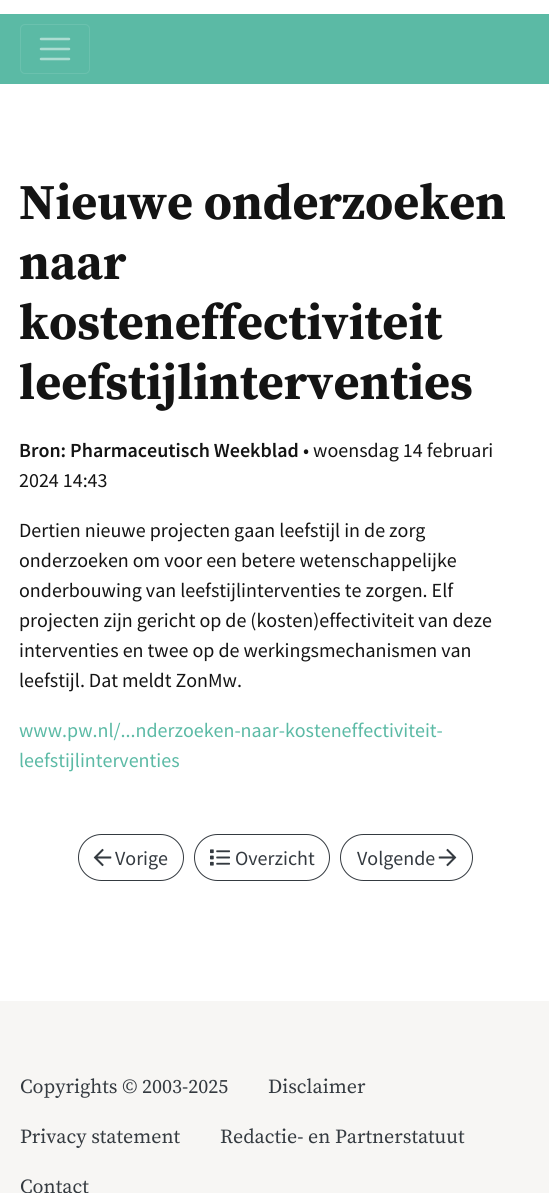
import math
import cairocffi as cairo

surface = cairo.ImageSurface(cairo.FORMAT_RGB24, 549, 1193)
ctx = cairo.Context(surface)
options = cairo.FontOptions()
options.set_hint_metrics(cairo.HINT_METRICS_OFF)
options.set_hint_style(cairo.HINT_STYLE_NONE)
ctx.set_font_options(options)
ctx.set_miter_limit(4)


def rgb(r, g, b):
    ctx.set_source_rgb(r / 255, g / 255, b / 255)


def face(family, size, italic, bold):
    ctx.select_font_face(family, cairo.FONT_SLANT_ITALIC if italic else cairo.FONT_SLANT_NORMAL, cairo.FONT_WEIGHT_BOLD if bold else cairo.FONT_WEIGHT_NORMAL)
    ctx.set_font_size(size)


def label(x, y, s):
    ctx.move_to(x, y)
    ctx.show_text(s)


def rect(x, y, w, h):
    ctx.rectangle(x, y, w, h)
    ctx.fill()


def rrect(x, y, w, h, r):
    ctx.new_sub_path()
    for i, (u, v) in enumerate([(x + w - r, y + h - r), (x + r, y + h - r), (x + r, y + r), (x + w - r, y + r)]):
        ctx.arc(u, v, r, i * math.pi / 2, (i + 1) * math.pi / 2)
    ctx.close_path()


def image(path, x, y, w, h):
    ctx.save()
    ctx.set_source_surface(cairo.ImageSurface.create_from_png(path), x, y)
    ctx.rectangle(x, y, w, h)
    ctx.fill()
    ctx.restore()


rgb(255, 255, 255)
ctx.paint()
rgb(91, 186, 165)
rect(0, 14, 549, 70)
rrect(20.5, 24.5, 69, 49, 4.5)
rgb(107, 193, 174)
ctx.set_line_width(1)
ctx.stroke()
ctx.new_path()
ctx.move_to(41, 39)
ctx.line_to(69, 39)
ctx.move_to(41, 49)
ctx.line_to(69, 49)
ctx.move_to(41, 59)
ctx.line_to(69, 59)
rgb(173, 221, 210)
ctx.set_line_width(2.5)
ctx.set_line_cap(cairo.LINE_CAP_ROUND)
ctx.stroke()
face('Source Serif Pro', 50, 0, 1)
rgb(20, 20, 20)
label(19, 219, 'Nieuwe onderzoeken')
label(19, 279, 'naar')
label(19, 339, 'kosteneffectiviteit')
label(19, 399, 'leefstijlinterventies')
face('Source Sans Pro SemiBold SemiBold', 20, 0, 0)
label(19, 457, 'Bron: Pharmaceutisch Weekblad')
face('Source Sans Pro', 20, 0, 0)
label(303, 457, '• woensdag 14 februari')
label(19, 487, '2024 14:43')
label(19, 537, 'Dertien nieuwe projecten gaan leefstijl in de zorg')
label(19, 567, 'onderzoeken om voor een betere wetenschappelijke')
label(19, 597, 'onderbouwing van leefstijlinterventies te zorgen. Elf')
label(19, 627, 'projecten zijn gericht op de (kosten)effectiviteit van deze')
label(19, 657, 'interventies en twee op de werkingsmechanismen van')
label(19, 687, 'leefstijl. Dat meldt ZonMw.')
rgb(91, 186, 165)
label(19, 737, 'www.pw.nl/...nderzoeken-naar-kosteneffectiviteit-')
label(19, 767, 'leefstijlinterventies')
rrect(78.5, 834.5, 105, 46, 23)
rgb(52, 58, 64)
ctx.set_line_width(1)
ctx.set_line_cap(cairo.LINE_CAP_BUTT)
ctx.stroke()
image('image0.png', 93, 848, 19, 19)
label(115, 865, 'Vorige')
rrect(194.5, 834.5, 135, 46, 23)
ctx.stroke()
image('image1.png', 210, 849, 20, 17)
label(235, 865, 'Overzicht')
rrect(340.5, 834.5, 132, 46, 23)
ctx.stroke()
label(357, 865, 'Volgende')
image('image2.png', 438, 848, 19, 19)
rgb(247, 246, 244)
rect(0, 1001, 549, 192)
face('Source Serif Pro', 20, 0, 0)
rgb(52, 58, 64)
label(20, 1093, 'Copyrights © 2003-2025')
label(268, 1093, 'Disclaimer')
label(20, 1143, 'Privacy statement')
label(220, 1143, 'Redactie- en Partnerstatuut')
label(20, 1193, 'Contact')
surface.write_to_png('render.png')
